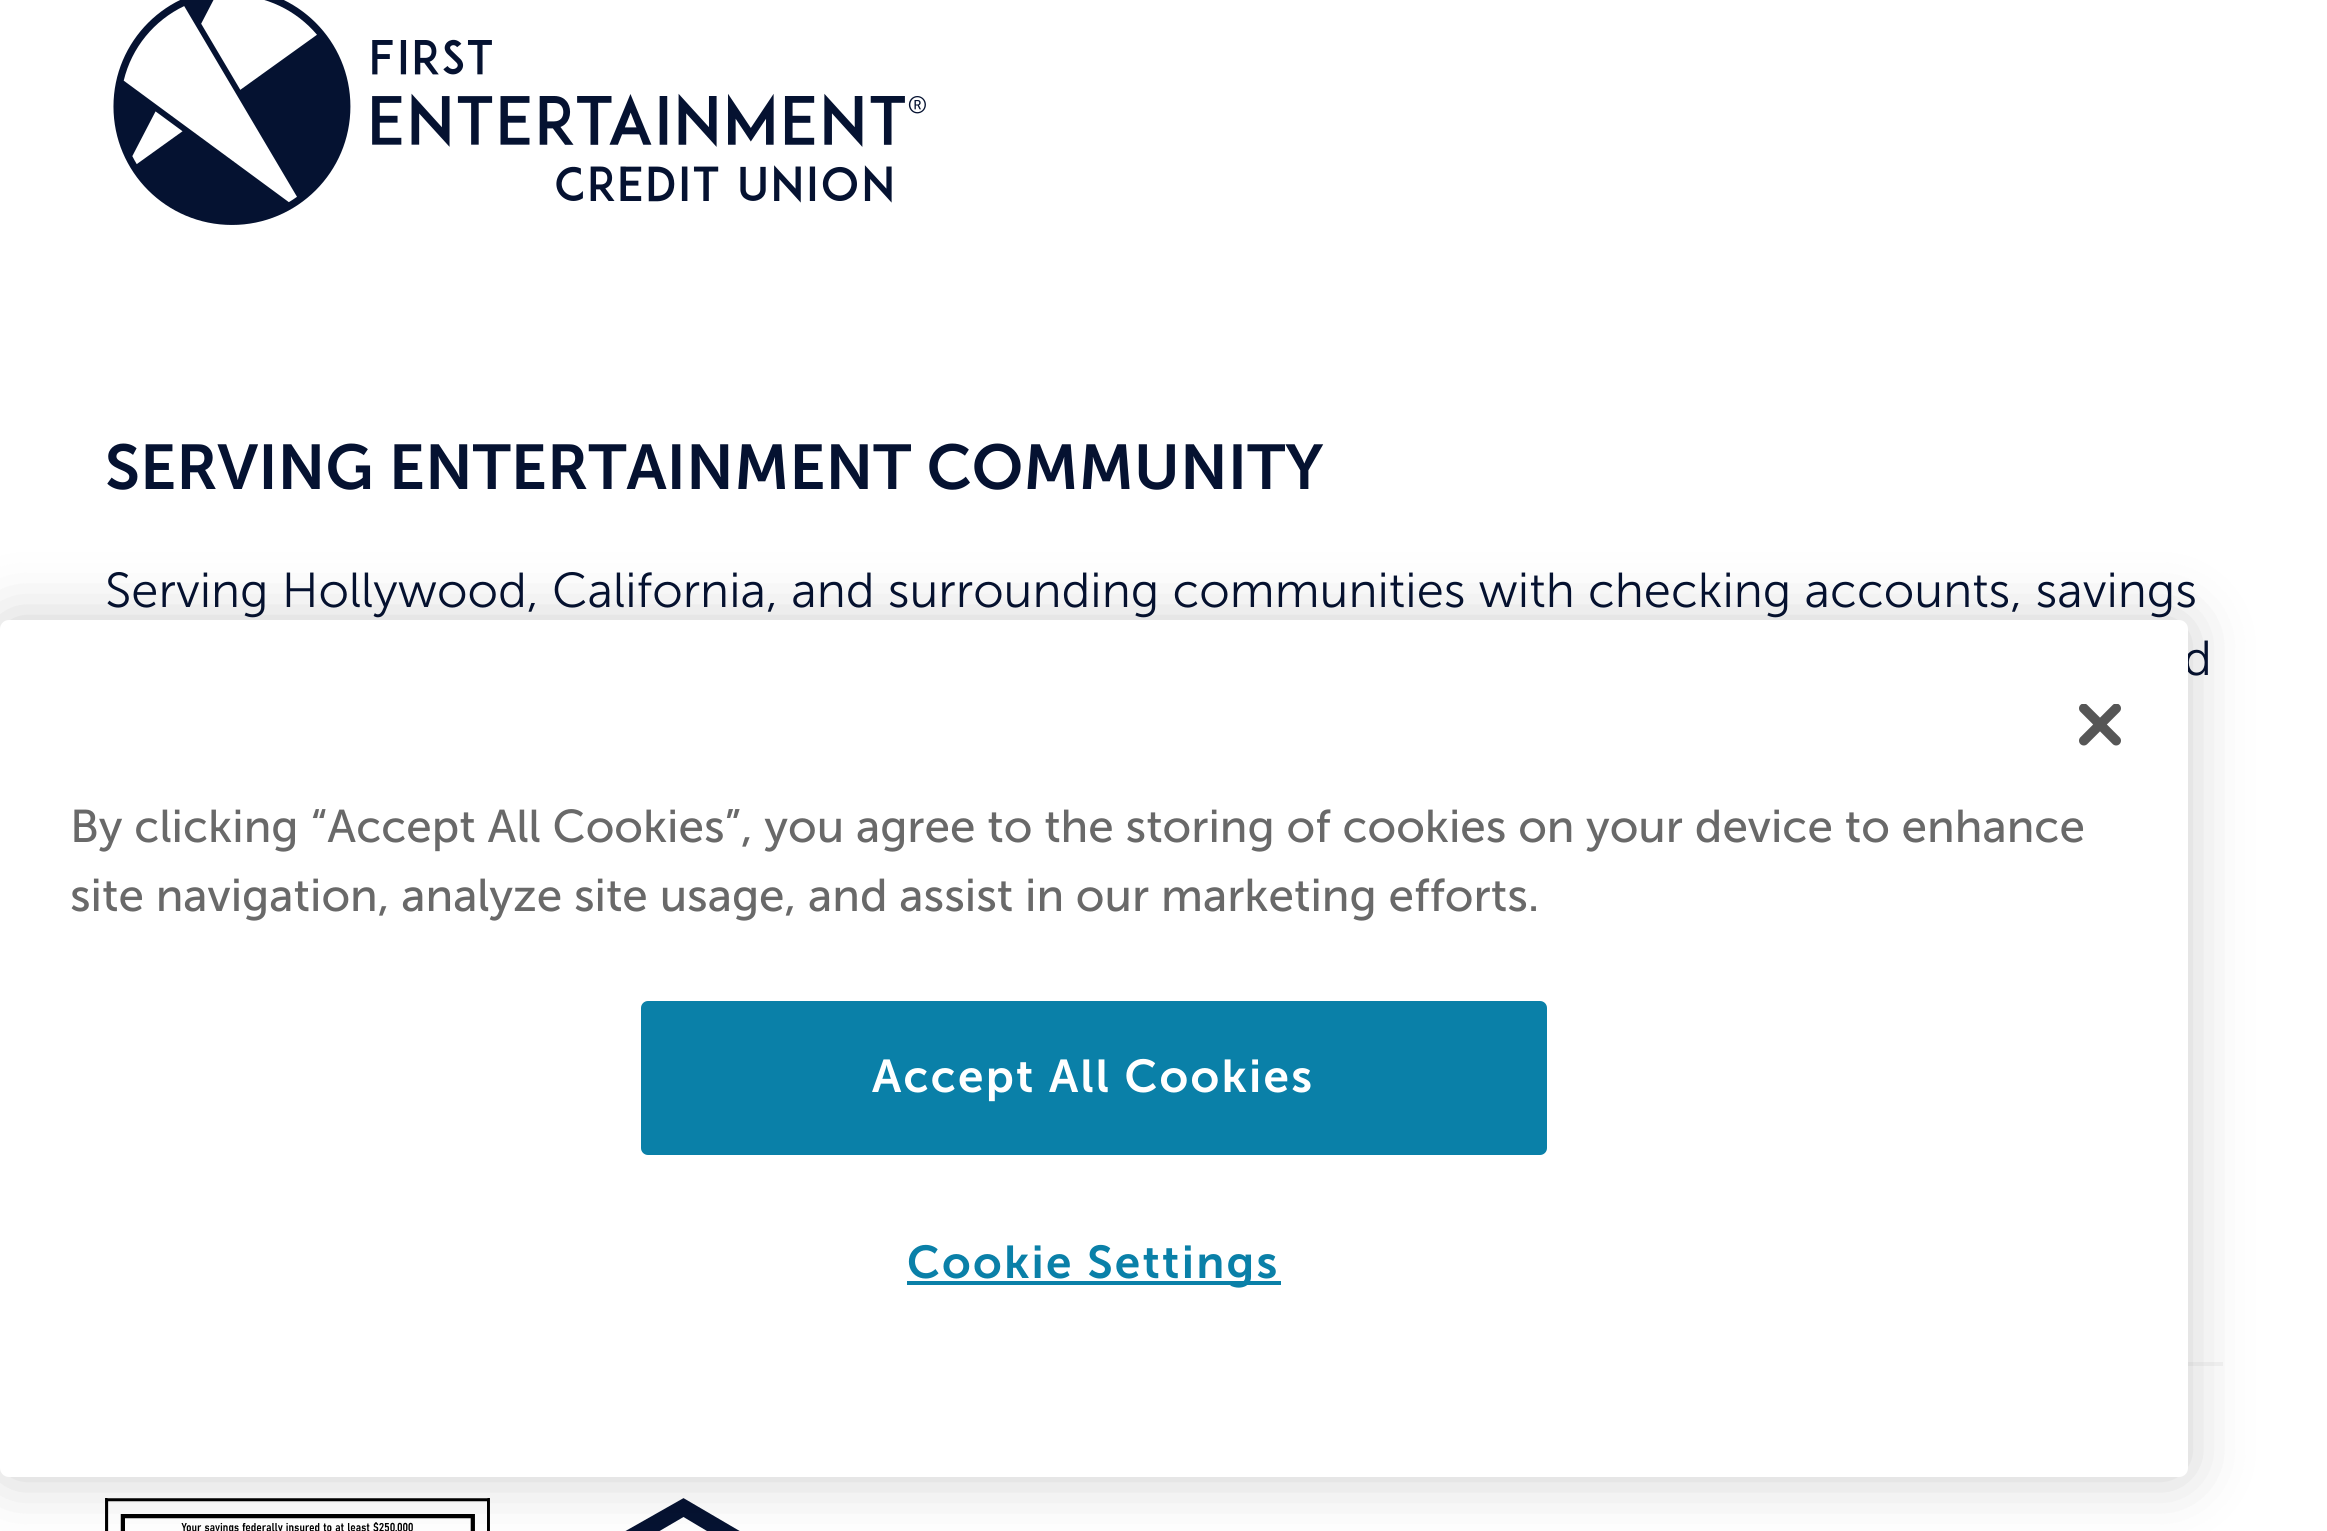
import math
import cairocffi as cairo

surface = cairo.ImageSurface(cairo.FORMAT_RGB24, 2327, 1531)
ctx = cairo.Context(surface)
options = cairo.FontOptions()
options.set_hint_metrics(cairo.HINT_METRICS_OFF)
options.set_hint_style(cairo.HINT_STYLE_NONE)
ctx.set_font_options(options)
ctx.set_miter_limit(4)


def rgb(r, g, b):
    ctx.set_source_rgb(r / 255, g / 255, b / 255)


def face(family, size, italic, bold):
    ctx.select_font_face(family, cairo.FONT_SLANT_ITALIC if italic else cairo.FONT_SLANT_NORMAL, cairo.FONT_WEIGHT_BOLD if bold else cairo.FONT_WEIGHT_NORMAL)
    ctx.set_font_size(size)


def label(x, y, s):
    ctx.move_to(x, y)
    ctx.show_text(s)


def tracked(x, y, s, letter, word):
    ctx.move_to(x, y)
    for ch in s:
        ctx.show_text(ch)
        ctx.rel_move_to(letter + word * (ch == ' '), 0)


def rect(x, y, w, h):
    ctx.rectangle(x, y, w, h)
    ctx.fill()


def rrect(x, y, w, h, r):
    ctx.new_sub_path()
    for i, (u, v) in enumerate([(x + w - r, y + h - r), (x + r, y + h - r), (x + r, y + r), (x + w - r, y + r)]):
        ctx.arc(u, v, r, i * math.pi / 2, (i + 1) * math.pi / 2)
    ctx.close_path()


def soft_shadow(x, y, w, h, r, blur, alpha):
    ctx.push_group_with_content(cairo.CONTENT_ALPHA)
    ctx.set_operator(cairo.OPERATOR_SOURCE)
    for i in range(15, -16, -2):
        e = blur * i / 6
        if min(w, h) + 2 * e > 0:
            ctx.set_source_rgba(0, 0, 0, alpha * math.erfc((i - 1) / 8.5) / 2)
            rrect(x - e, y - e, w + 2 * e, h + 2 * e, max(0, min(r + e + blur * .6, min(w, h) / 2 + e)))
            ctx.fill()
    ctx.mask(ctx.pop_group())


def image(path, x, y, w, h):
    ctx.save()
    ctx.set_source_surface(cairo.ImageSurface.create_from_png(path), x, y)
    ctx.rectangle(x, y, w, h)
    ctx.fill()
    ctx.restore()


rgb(255, 255, 255)
ctx.paint()
image('image0.png', 113, 0, 813, 225)
face('Museo Sans SemiBold', 63, 0, 0)
rgb(5, 18, 49)
label(105, 489, 'SERVING ENTERTAINMENT COMMUNITY')
face('Museo Sans Light', 49, 0, 0)
label(105, 607, 'Serving Hollywood, California, and surrounding communities with checking accounts, savings')
label(2183, 675, 'd')
rgb(245, 245, 245)
rect(2188, 1362, 35, 4)
image('image1.png', 105, 1498, 385, 33)
image('image2.png', 625, 1498, 115, 33)
rgb(0, 0, 0)
soft_shadow(0, 620, 2188, 857, 9, 31.5, 0.2)
rgb(255, 255, 255)
rrect(0, 620, 2188, 857, 9)
ctx.fill()
image('image3.png', 2079, 704, 42, 42)
face('Museo Sans', 45.9, 0, 0)
rgb(105, 105, 105)
label(70, 842, 'By clicking “Accept All Cookies”, you agree to the storing of cookies on your device to enhance')
label(70, 911, 'site navigation, analyze site usage, and assist in our marketing efforts.')
rgb(10, 128, 168)
rrect(643, 1003, 902, 150, 5)
ctx.fill_preserve()
ctx.set_line_width(4)
ctx.stroke()
face('Museo Sans SemiBold', 45.9, 0, 0)
rgb(255, 255, 255)
tracked(872, 1092, 'Accept All Cookies', 2.25, 0)
rgb(10, 128, 168)
rect(907, 1281, 374, 4)
tracked(907, 1278, 'Cookie Settings', 2.25, 0)
surface.write_to_png('render.png')
